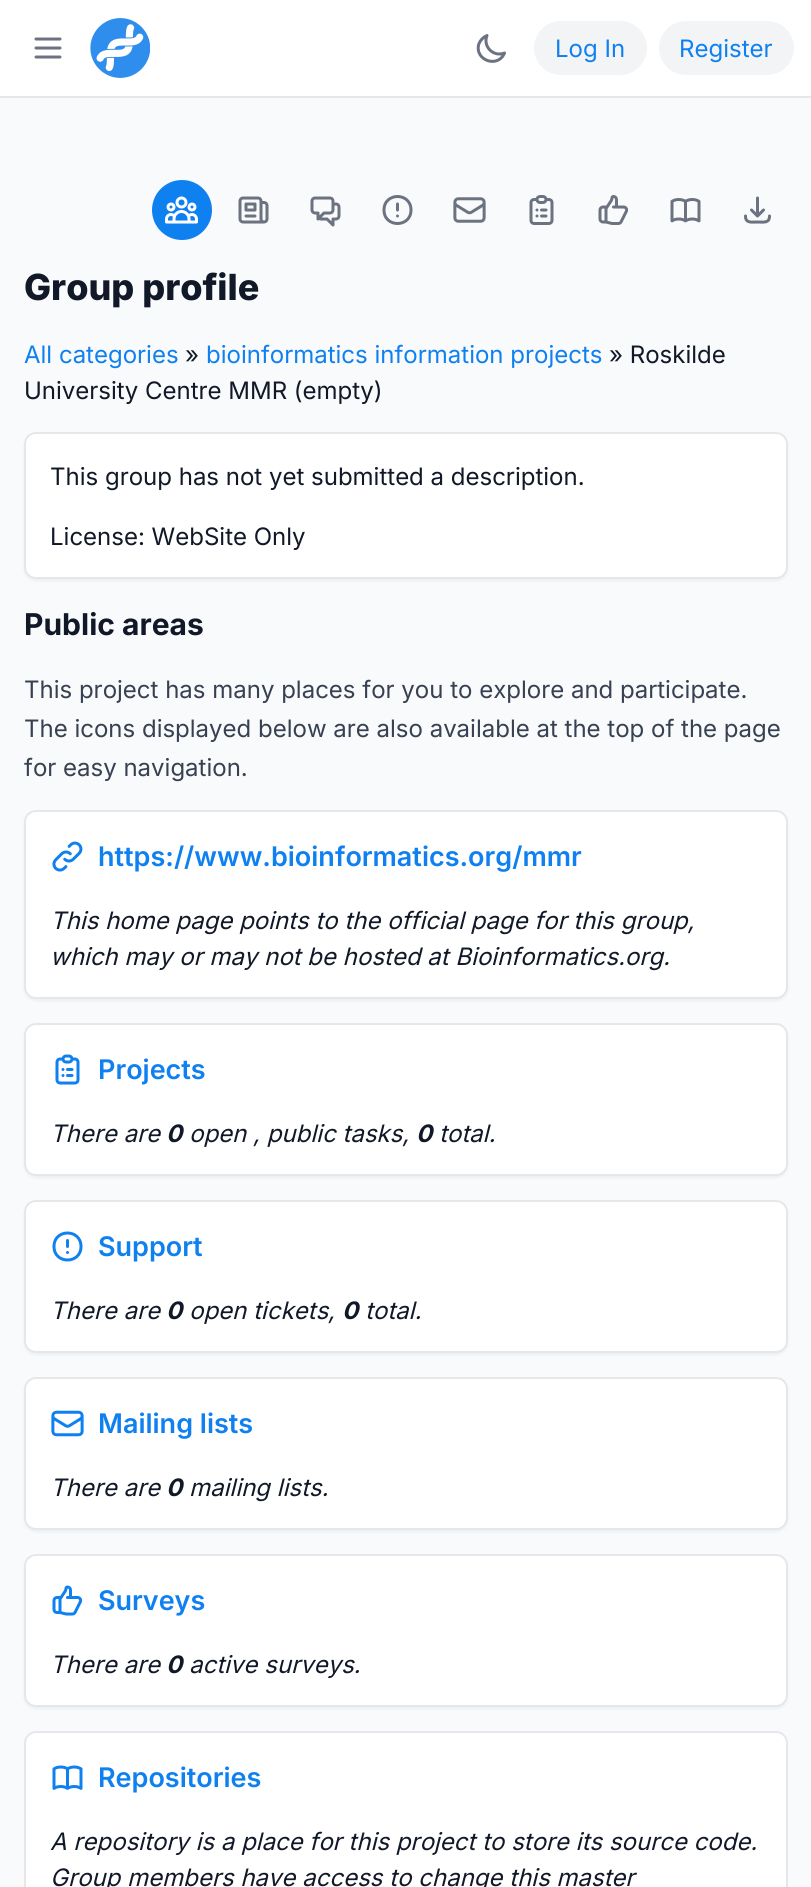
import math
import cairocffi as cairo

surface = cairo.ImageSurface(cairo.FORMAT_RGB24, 811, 1887)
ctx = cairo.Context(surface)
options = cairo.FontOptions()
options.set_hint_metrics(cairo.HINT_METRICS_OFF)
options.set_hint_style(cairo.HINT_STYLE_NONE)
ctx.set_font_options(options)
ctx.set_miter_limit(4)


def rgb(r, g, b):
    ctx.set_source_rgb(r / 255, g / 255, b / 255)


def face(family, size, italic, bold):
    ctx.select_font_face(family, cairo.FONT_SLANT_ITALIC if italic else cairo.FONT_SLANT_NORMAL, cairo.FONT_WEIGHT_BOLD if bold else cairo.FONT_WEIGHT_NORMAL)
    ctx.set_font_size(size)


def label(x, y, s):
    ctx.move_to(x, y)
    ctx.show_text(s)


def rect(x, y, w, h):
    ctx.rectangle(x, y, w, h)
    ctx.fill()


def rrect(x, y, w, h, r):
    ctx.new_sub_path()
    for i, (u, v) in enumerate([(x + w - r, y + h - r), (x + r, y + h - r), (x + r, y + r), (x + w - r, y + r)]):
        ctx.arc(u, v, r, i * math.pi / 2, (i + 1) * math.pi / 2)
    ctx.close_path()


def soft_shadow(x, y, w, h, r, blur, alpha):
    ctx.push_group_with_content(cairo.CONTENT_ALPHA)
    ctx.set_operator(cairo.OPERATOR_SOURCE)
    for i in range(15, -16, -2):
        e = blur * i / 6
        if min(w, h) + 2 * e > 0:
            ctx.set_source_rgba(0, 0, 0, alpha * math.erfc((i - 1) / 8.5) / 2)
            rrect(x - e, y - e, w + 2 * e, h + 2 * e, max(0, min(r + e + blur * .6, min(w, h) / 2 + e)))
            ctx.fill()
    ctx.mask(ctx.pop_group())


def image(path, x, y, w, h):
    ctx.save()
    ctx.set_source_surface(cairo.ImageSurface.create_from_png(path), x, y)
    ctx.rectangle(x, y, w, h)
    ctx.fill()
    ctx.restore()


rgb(249, 250, 251)
ctx.paint()
rgb(255, 255, 255)
rect(0, 0, 811, 96)
rgb(229, 231, 235)
rect(0, 96, 811, 2)
ctx.new_path()
ctx.move_to(36, 39)
ctx.line_to(60, 39)
ctx.move_to(36, 48)
ctx.line_to(60, 48)
ctx.move_to(36, 57)
ctx.line_to(60, 57)
rgb(107, 114, 128)
ctx.set_line_width(3)
ctx.set_line_cap(cairo.LINE_CAP_ROUND)
ctx.set_line_join(cairo.LINE_JOIN_ROUND)
ctx.stroke()
image('image0.png', 90, 18, 60, 60)
ctx.new_path()
ctx.move_to(504.5, 53)
ctx.curve_to(493.5, 57.5, 482.5, 46.5, 487, 35.5)
ctx.curve_to(483.5, 37, 480.5, 40, 479, 43.5)
ctx.curve_to(473.5, 60, 498, 69, 504.5, 53)
ctx.stroke()
rgb(243, 244, 246)
rrect(534, 21, 113, 54, 27)
ctx.fill()
face('Inter', 24, 0, 0)
rgb(15, 128, 240)
label(555, 57, 'Log In')
rgb(243, 244, 246)
rrect(659, 21, 135, 54, 27)
ctx.fill()
rgb(15, 128, 240)
label(679, 57, 'Register')
ctx.new_path()
ctx.arc(182, 210, 30, 0, 2 * math.pi)
ctx.fill()
image('image1.png', 165, 196, 33, 28)
image('image2.png', 238, 196, 31, 28)
image('image3.png', 310, 196, 31, 31)
ctx.new_path()
ctx.move_to(397.5, 204)
ctx.line_to(397.5, 210)
ctx.move_to(397.5, 216)
ctx.line_to(397.5, 216)
ctx.move_to(411, 210)
ctx.curve_to(411, 228, 384, 228, 384, 210)
ctx.curve_to(384, 192, 411, 192, 411, 210)
rgb(107, 114, 128)
ctx.stroke()
image('image4.png', 453, 197, 33, 26)
image('image5.png', 529, 195, 25, 30)
image('image6.png', 598, 195, 31, 30)
image('image7.png', 670, 198, 31, 25)
ctx.new_path()
ctx.move_to(745.5, 216)
ctx.curve_to(745.5, 223.5, 751.5, 222, 757.5, 222)
ctx.curve_to(763.5, 222, 769.5, 223.5, 769.5, 216)
ctx.move_to(763.5, 210)
ctx.line_to(757.5, 216)
ctx.move_to(757.5, 216)
ctx.line_to(751.5, 210)
ctx.move_to(757.5, 216)
ctx.line_to(757.5, 198)
ctx.stroke()
face('Inter ExtraBold', 36, 0, 0)
rgb(17, 24, 39)
label(24, 300, 'Group profile')
face('Inter', 24, 0, 0)
rgb(15, 128, 240)
label(24, 363, 'All categories')
rgb(17, 24, 39)
label(185, 363, '»')
rgb(15, 128, 240)
label(206, 363, 'bioinformatics information projects')
rgb(17, 24, 39)
label(609, 363, '» Roskilde')
label(24, 399, 'University Centre MMR (empty)')
rgb(0, 0, 0)
soft_shadow(24, 434, 764, 147, 12, 1.5, 0.05)
rgb(255, 255, 255)
rrect(25, 433, 762, 145, 11)
ctx.fill_preserve()
rgb(229, 231, 235)
ctx.set_line_width(2)
ctx.set_line_cap(cairo.LINE_CAP_BUTT)
ctx.set_line_join(cairo.LINE_JOIN_MITER)
ctx.stroke()
rgb(17, 24, 39)
label(50, 485, 'This group has not yet submitted a description.')
label(50, 545, 'License: WebSite Only')
face('Inter', 30, 0, 1)
label(24, 635, 'Public areas')
face('Inter', 24, 0, 0)
rgb(55, 65, 81)
label(24, 698, 'This project has many places for you to explore and participate.')
label(24, 737, 'The icons displayed below are also available at the top of the page')
label(24, 776, 'for easy navigation.')
rgb(0, 0, 0)
soft_shadow(24, 812, 764, 189, 12, 1.5, 0.05)
rgb(255, 255, 255)
rrect(25, 811, 762, 187, 11)
ctx.fill_preserve()
rgb(229, 231, 235)
ctx.stroke()
image('image8.png', 52, 841, 31, 31)
face('Inter SemiBold', 27, 0, 0)
rgb(15, 128, 240)
label(98, 866, 'https://www.bioinformatics.org/mmr')
face('Inter', 24, 1, 0)
rgb(17, 24, 39)
label(50, 929, 'This home page points to the official page for this group,')
label(50, 965, 'which may or may not be hosted at Bioinformatics.org.')
rgb(0, 0, 0)
soft_shadow(24, 1025, 764, 153, 12, 1.5, 0.05)
rgb(255, 255, 255)
rrect(25, 1024, 762, 151, 11)
ctx.fill_preserve()
rgb(229, 231, 235)
ctx.stroke()
image('image9.png', 55, 1054, 25, 31)
face('Inter SemiBold', 27, 0, 0)
rgb(15, 128, 240)
label(98, 1079, 'Projects')
face('Inter', 24, 1, 0)
rgb(17, 24, 39)
label(50, 1142, 'There are')
face('Inter', 24, 1, 1)
label(166, 1142, '0')
face('Inter', 24, 1, 0)
label(189, 1142, 'open , public tasks,')
face('Inter', 24, 1, 1)
label(416, 1142, '0')
face('Inter', 24, 1, 0)
label(439, 1142, 'total.')
rgb(0, 0, 0)
soft_shadow(24, 1202, 764, 153, 12, 1.5, 0.05)
rgb(255, 255, 255)
rrect(25, 1201, 762, 151, 11)
ctx.fill_preserve()
rgb(229, 231, 235)
ctx.stroke()
ctx.new_path()
ctx.move_to(67.5, 1240.5)
ctx.line_to(67.5, 1246.5)
ctx.move_to(67.5, 1252.5)
ctx.line_to(67.5, 1252.5)
ctx.move_to(81, 1246.5)
ctx.curve_to(81, 1264.5, 54, 1264.5, 54, 1246.5)
ctx.curve_to(54, 1228.5, 81, 1228.5, 81, 1246.5)
rgb(15, 128, 240)
ctx.set_line_width(3)
ctx.set_line_cap(cairo.LINE_CAP_ROUND)
ctx.set_line_join(cairo.LINE_JOIN_ROUND)
ctx.stroke()
face('Inter SemiBold', 27, 0, 0)
label(98, 1256, 'Support')
face('Inter', 24, 1, 0)
rgb(17, 24, 39)
label(50, 1319, 'There are')
face('Inter', 24, 1, 1)
label(166, 1319, '0')
face('Inter', 24, 1, 0)
label(189, 1319, 'open tickets,')
face('Inter', 24, 1, 1)
label(342, 1319, '0')
face('Inter', 24, 1, 0)
label(365, 1319, 'total.')
rgb(0, 0, 0)
soft_shadow(24, 1379, 764, 153, 12, 1.5, 0.05)
rgb(255, 255, 255)
rrect(25, 1378, 762, 151, 11)
ctx.fill_preserve()
rgb(229, 231, 235)
ctx.set_line_width(2)
ctx.set_line_cap(cairo.LINE_CAP_BUTT)
ctx.set_line_join(cairo.LINE_JOIN_MITER)
ctx.stroke()
image('image10.png', 51, 1410, 33, 27)
face('Inter SemiBold', 27, 0, 0)
rgb(15, 128, 240)
label(98, 1433, 'Mailing lists')
face('Inter', 24, 1, 0)
rgb(17, 24, 39)
label(50, 1496, 'There are')
face('Inter', 24, 1, 1)
label(166, 1496, '0')
face('Inter', 24, 1, 0)
label(189, 1496, 'mailing lists.')
rgb(0, 0, 0)
soft_shadow(24, 1556, 764, 153, 12, 1.5, 0.05)
rgb(255, 255, 255)
rrect(25, 1555, 762, 151, 11)
ctx.fill_preserve()
rgb(229, 231, 235)
ctx.stroke()
image('image11.png', 52, 1585, 31, 31)
face('Inter SemiBold', 27, 0, 0)
rgb(15, 128, 240)
label(98, 1610, 'Surveys')
face('Inter', 24, 1, 0)
rgb(17, 24, 39)
label(50, 1673, 'There are')
face('Inter', 24, 1, 1)
label(166, 1673, '0')
face('Inter', 24, 1, 0)
label(189, 1673, 'active surveys.')
rgb(255, 255, 255)
ctx.new_path()
ctx.move_to(36, 1731)
ctx.line_to(776, 1731)
ctx.curve_to(782.5, 1731, 788, 1736.5, 788, 1743)
ctx.line_to(788, 1887)
ctx.line_to(24, 1887)
ctx.line_to(24, 1743)
ctx.curve_to(24, 1736.5, 29.5, 1731, 36, 1731)
ctx.close_path()
ctx.fill()
rrect(25, 1732, 762, 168, 11)
rgb(229, 231, 235)
ctx.stroke()
image('image12.png', 52, 1765, 31, 25)
face('Inter SemiBold', 27, 0, 0)
rgb(15, 128, 240)
label(98, 1787, 'Repositories')
face('Inter', 24, 1, 0)
rgb(17, 24, 39)
label(50, 1850, 'A repository is a place for this project to store its source code.')
label(50, 1886, 'Group members have access to change this master')
surface.write_to_png('render.png')
